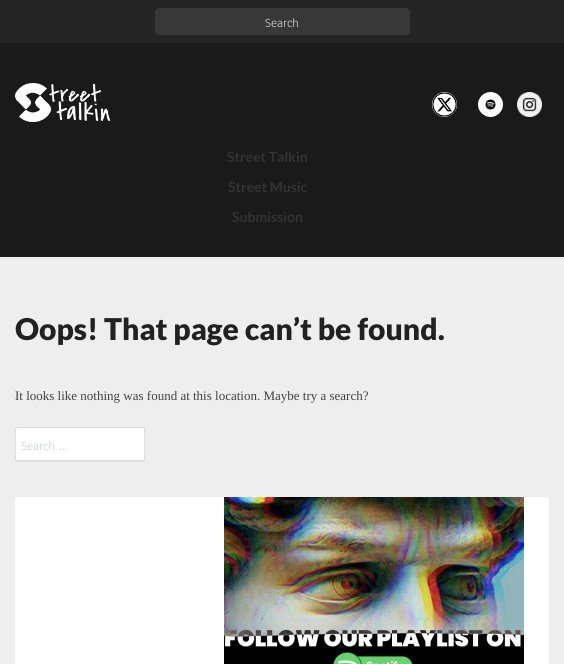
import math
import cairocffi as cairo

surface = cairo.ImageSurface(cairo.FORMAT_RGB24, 564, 664)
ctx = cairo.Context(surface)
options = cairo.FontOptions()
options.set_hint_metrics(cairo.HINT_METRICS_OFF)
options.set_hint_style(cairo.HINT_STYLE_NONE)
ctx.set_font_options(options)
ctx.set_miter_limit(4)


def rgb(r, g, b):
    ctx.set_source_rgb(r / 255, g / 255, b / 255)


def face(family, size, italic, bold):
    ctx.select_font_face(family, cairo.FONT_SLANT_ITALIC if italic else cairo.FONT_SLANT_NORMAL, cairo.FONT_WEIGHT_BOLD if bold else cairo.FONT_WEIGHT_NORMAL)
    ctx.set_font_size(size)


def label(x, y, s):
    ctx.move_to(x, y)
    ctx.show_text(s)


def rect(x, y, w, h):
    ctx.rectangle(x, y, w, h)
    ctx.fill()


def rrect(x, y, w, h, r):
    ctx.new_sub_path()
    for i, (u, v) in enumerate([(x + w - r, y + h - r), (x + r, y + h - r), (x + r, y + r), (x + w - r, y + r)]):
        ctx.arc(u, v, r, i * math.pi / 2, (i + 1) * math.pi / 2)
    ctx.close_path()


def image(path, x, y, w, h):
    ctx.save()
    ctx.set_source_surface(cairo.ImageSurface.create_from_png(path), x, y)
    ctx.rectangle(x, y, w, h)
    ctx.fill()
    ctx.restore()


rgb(238, 238, 238)
ctx.paint()
rgb(37, 37, 37)
rect(0, 0, 564, 43)
rgb(56, 56, 56)
rrect(155, 8, 255, 27, 4)
ctx.fill()
face('Anaheim', 13, 0, 0)
rgb(201, 208, 218)
label(265, 27, 'Search')
rgb(26, 26, 26)
rect(0, 43, 564, 214)
image('image0.png', 15, 83, 95, 39)
image('image1.png', 432, 92, 25, 25)
image('image2.png', 478, 92, 25, 25)
image('image3.png', 517, 92, 25, 25)
face('Lato', 14, 0, 1)
rgb(51, 51, 51)
label(227, 162, 'Street Talkin')
label(228, 192, 'Street Music')
label(232, 222, 'Submission')
face('Lato Black', 30, 0, 0)
rgb(33, 33, 33)
label(15, 340, 'Oops! That page can’t be found.')
face('Liberation Serif', 13, 0, 0)
rgb(66, 66, 66)
label(15, 400, 'It looks like nothing was found at this location. Maybe try a search?')
rgb(255, 255, 255)
ctx.new_path()
ctx.move_to(17, 428)
ctx.line_to(144, 428)
ctx.line_to(144, 460)
ctx.line_to(16, 460)
ctx.line_to(16, 429)
ctx.close_path()
ctx.fill()
ctx.new_path()
ctx.move_to(17, 427.5)
ctx.line_to(144.5, 427.5)
ctx.line_to(144.5, 461.5)
ctx.line_to(17, 461.5)
ctx.curve_to(16, 461.5, 15.5, 461, 15.5, 460)
ctx.line_to(15.5, 429)
ctx.curve_to(15.5, 428, 16, 427.5, 17, 427.5)
ctx.close_path()
rgb(221, 221, 221)
ctx.set_line_width(1)
ctx.stroke()
rect(16, 460, 129, 1)
face('Anaheim', 13, 0, 0)
rgb(201, 208, 218)
label(21, 450, 'Search …')
rgb(255, 255, 255)
rrect(15, 497, 534, 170, 3)
ctx.fill()
image('image4.png', 224, 497, 300, 167)
surface.write_to_png('render.png')
